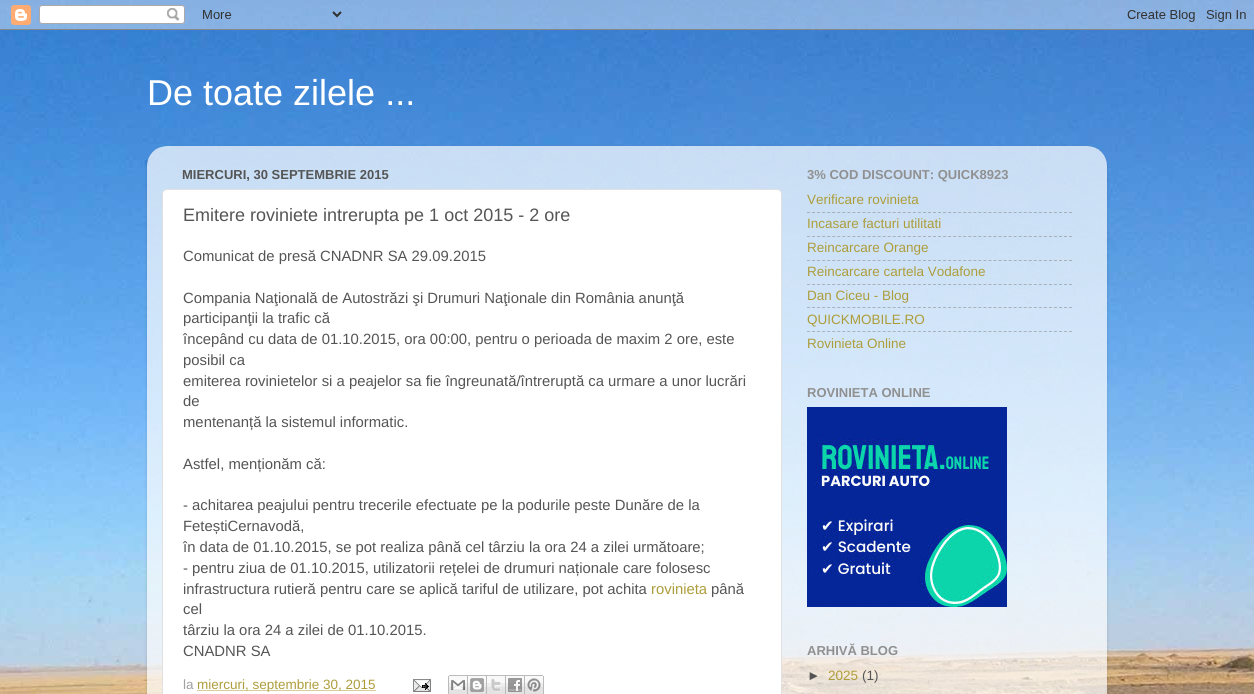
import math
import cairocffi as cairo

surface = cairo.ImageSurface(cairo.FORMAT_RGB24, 1254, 694)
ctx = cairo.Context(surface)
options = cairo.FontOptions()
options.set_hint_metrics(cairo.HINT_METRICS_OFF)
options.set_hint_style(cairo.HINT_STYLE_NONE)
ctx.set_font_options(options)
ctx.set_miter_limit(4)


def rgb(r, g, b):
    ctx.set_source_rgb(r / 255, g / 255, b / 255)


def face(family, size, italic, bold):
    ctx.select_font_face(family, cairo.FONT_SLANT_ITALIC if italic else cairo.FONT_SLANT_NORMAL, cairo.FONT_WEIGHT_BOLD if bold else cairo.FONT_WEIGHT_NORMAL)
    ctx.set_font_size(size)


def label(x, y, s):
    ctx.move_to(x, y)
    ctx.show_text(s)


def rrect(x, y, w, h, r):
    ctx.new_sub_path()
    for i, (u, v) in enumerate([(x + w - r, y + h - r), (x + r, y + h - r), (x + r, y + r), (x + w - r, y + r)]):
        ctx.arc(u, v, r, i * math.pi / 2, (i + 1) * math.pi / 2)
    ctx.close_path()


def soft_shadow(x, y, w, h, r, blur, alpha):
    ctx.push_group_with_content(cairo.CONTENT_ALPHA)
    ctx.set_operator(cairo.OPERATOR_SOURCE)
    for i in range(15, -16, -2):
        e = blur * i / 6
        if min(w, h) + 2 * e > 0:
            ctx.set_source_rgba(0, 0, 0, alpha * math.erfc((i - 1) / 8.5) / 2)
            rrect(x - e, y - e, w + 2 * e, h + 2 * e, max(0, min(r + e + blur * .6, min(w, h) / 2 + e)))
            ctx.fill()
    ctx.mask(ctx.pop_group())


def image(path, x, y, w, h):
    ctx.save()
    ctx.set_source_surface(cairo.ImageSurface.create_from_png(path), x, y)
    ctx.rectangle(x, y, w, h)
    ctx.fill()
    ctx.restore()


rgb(255, 255, 255)
ctx.paint()
image('image0.png', 0, 0, 1254, 694)
image('image1.png', 0, 0, 1254, 30)
face('Liberation Sans', 36, 0, 0)
rgb(255, 255, 255)
label(147, 105, 'De toate zilele ...')
ctx.save()
ctx.set_fill_rule(cairo.FILL_RULE_EVEN_ODD)
ctx.new_path()
ctx.move_to(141, 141)
ctx.line_to(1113, 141)
ctx.line_to(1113, 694)
ctx.line_to(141, 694)
ctx.close_path()
ctx.move_to(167, 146)
ctx.line_to(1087, 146)
ctx.curve_to(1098, 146, 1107, 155, 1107, 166)
ctx.line_to(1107, 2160)
ctx.line_to(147, 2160)
ctx.line_to(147, 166)
ctx.curve_to(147, 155, 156, 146, 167, 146)
ctx.close_path()
ctx.clip()
rgb(0, 0, 0)
soft_shadow(147, 147, 960, 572, 20, 1.5, 0.15)
ctx.restore()
image('image2.png', 147, 146, 960, 548)
face('Liberation Sans', 13, 0, 1)
rgb(85, 85, 85)
label(182, 179, 'MIERCURI, 30 SEPTEMBRIE 2015')
rgb(255, 255, 255)
rrect(162.5, 189.5, 619, 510, 4.5)
ctx.fill_preserve()
rgb(224, 224, 224)
ctx.set_line_width(1)
ctx.stroke()
face('Liberation Sans', 18, 0, 0)
rgb(85, 85, 85)
label(183, 221, 'Emitere roviniete intrerupta pe 1 oct 2015 - 2 ore')
face('Liberation Sans', 14.85, 0, 0)
label(183, 261, 'Comunicat de presă CNADNR SA 29.09.2015')
label(183, 303, 'Compania Naţională de Autostrăzi şi Drumuri Naţionale din România anunţă')
label(183, 323, 'participanţii la trafic că')
label(183, 344, 'începând cu data de 01.10.2015, ora 00:00, pentru o perioada de maxim 2 ore, este')
label(183, 365, 'posibil ca')
label(183, 386, 'emiterea rovinietelor si a peajelor sa fie îngreunată/întreruptă ca urmare a unor lucrări')
label(183, 406, 'de')
label(183, 427, 'mentenanță la sistemul informatic.')
label(183, 469, 'Astfel, menționăm că:')
label(183, 510, '- achitarea peajului pentru trecerile efectuate pe la podurile peste Dunăre de la')
label(183, 531, 'FeteștiCernavodă,')
label(183, 552, 'în data de 01.10.2015, se pot realiza până cel târziu la ora 24 a zilei următoare;')
label(183, 573, '- pentru ziua de 01.10.2015, utilizatorii rețelei de drumuri naționale care folosesc')
label(183, 594, 'infrastructura rutieră pentru care se aplică tariful de utilizare, pot achita')
rgb(173, 157, 58)
label(651, 594, 'rovinieta')
rgb(85, 85, 85)
label(711, 594, 'până')
label(183, 614, 'cel')
label(183, 635, 'târziu la ora 24 a zilei de 01.10.2015.')
label(183, 656, 'CNADNR SA')
face('Liberation Sans', 13.5, 0, 0)
rgb(160, 160, 160)
label(183, 689, 'la')
ctx.new_path()
ctx.move_to(197.5, 690.5)
ctx.line_to(376, 690.5)
rgb(173, 157, 58)
ctx.set_dash([1, 1])
ctx.stroke()
label(197, 689, 'miercuri, septembrie 30, 2015')
image('image3.png', 413, 679, 18, 13)
image('image4.png', 448, 675, 20, 19)
image('image5.png', 468, 675, 19, 19)
image('image6.png', 487, 675, 19, 19)
image('image7.png', 506, 675, 19, 19)
image('image8.png', 525, 675, 19, 19)
face('Liberation Sans', 13, 0, 1)
rgb(144, 144, 144)
label(807, 179, '3% COD DISCOUNT: QUICK8923')
face('Liberation Sans', 13.5, 0, 0)
rgb(173, 157, 58)
label(807, 204, 'Verificare rovinieta')
ctx.new_path()
ctx.move_to(807, 212.5)
ctx.line_to(1072, 212.5)
ctx.set_source_rgba(0.502, 0.502, 0.502, 0.5)
ctx.set_dash([3, 2.04])
ctx.stroke()
rgb(173, 157, 58)
label(807, 228, 'Incasare facturi utilitati')
ctx.new_path()
ctx.move_to(807, 236.5)
ctx.line_to(1072, 236.5)
ctx.set_source_rgba(0.502, 0.502, 0.502, 0.5)
ctx.stroke()
rgb(173, 157, 58)
label(807, 252, 'Reincarcare Orange')
ctx.new_path()
ctx.move_to(807, 260.5)
ctx.line_to(1072, 260.5)
ctx.set_source_rgba(0.502, 0.502, 0.502, 0.5)
ctx.stroke()
rgb(173, 157, 58)
label(807, 276, 'Reincarcare cartela Vodafone')
ctx.new_path()
ctx.move_to(807, 284.5)
ctx.line_to(1072, 284.5)
ctx.set_source_rgba(0.502, 0.502, 0.502, 0.5)
ctx.stroke()
rgb(173, 157, 58)
label(807, 300, 'Dan Ciceu - Blog')
ctx.new_path()
ctx.move_to(807, 307.5)
ctx.line_to(1072, 307.5)
rgb(168, 178, 188)
ctx.stroke()
rgb(173, 157, 58)
label(807, 324, 'QUICKMOBILE.RO')
ctx.new_path()
ctx.move_to(807, 331.5)
ctx.line_to(1072, 331.5)
rgb(169, 179, 189)
ctx.stroke()
rgb(173, 157, 58)
label(807, 348, 'Rovinieta Online')
face('Liberation Sans', 13, 0, 1)
rgb(144, 144, 144)
label(807, 397, 'ROVINIETA ONLINE')
image('image9.png', 807, 407, 200, 200)
label(807, 655, 'ARHIVĂ BLOG')
face('Liberation Sans', 13.5, 0, 0)
rgb(85, 85, 85)
label(807, 680, '►')
rgb(173, 157, 58)
label(828, 680, '2025')
rgb(85, 85, 85)
label(862, 680, '(1)')
surface.write_to_png('render.png')
